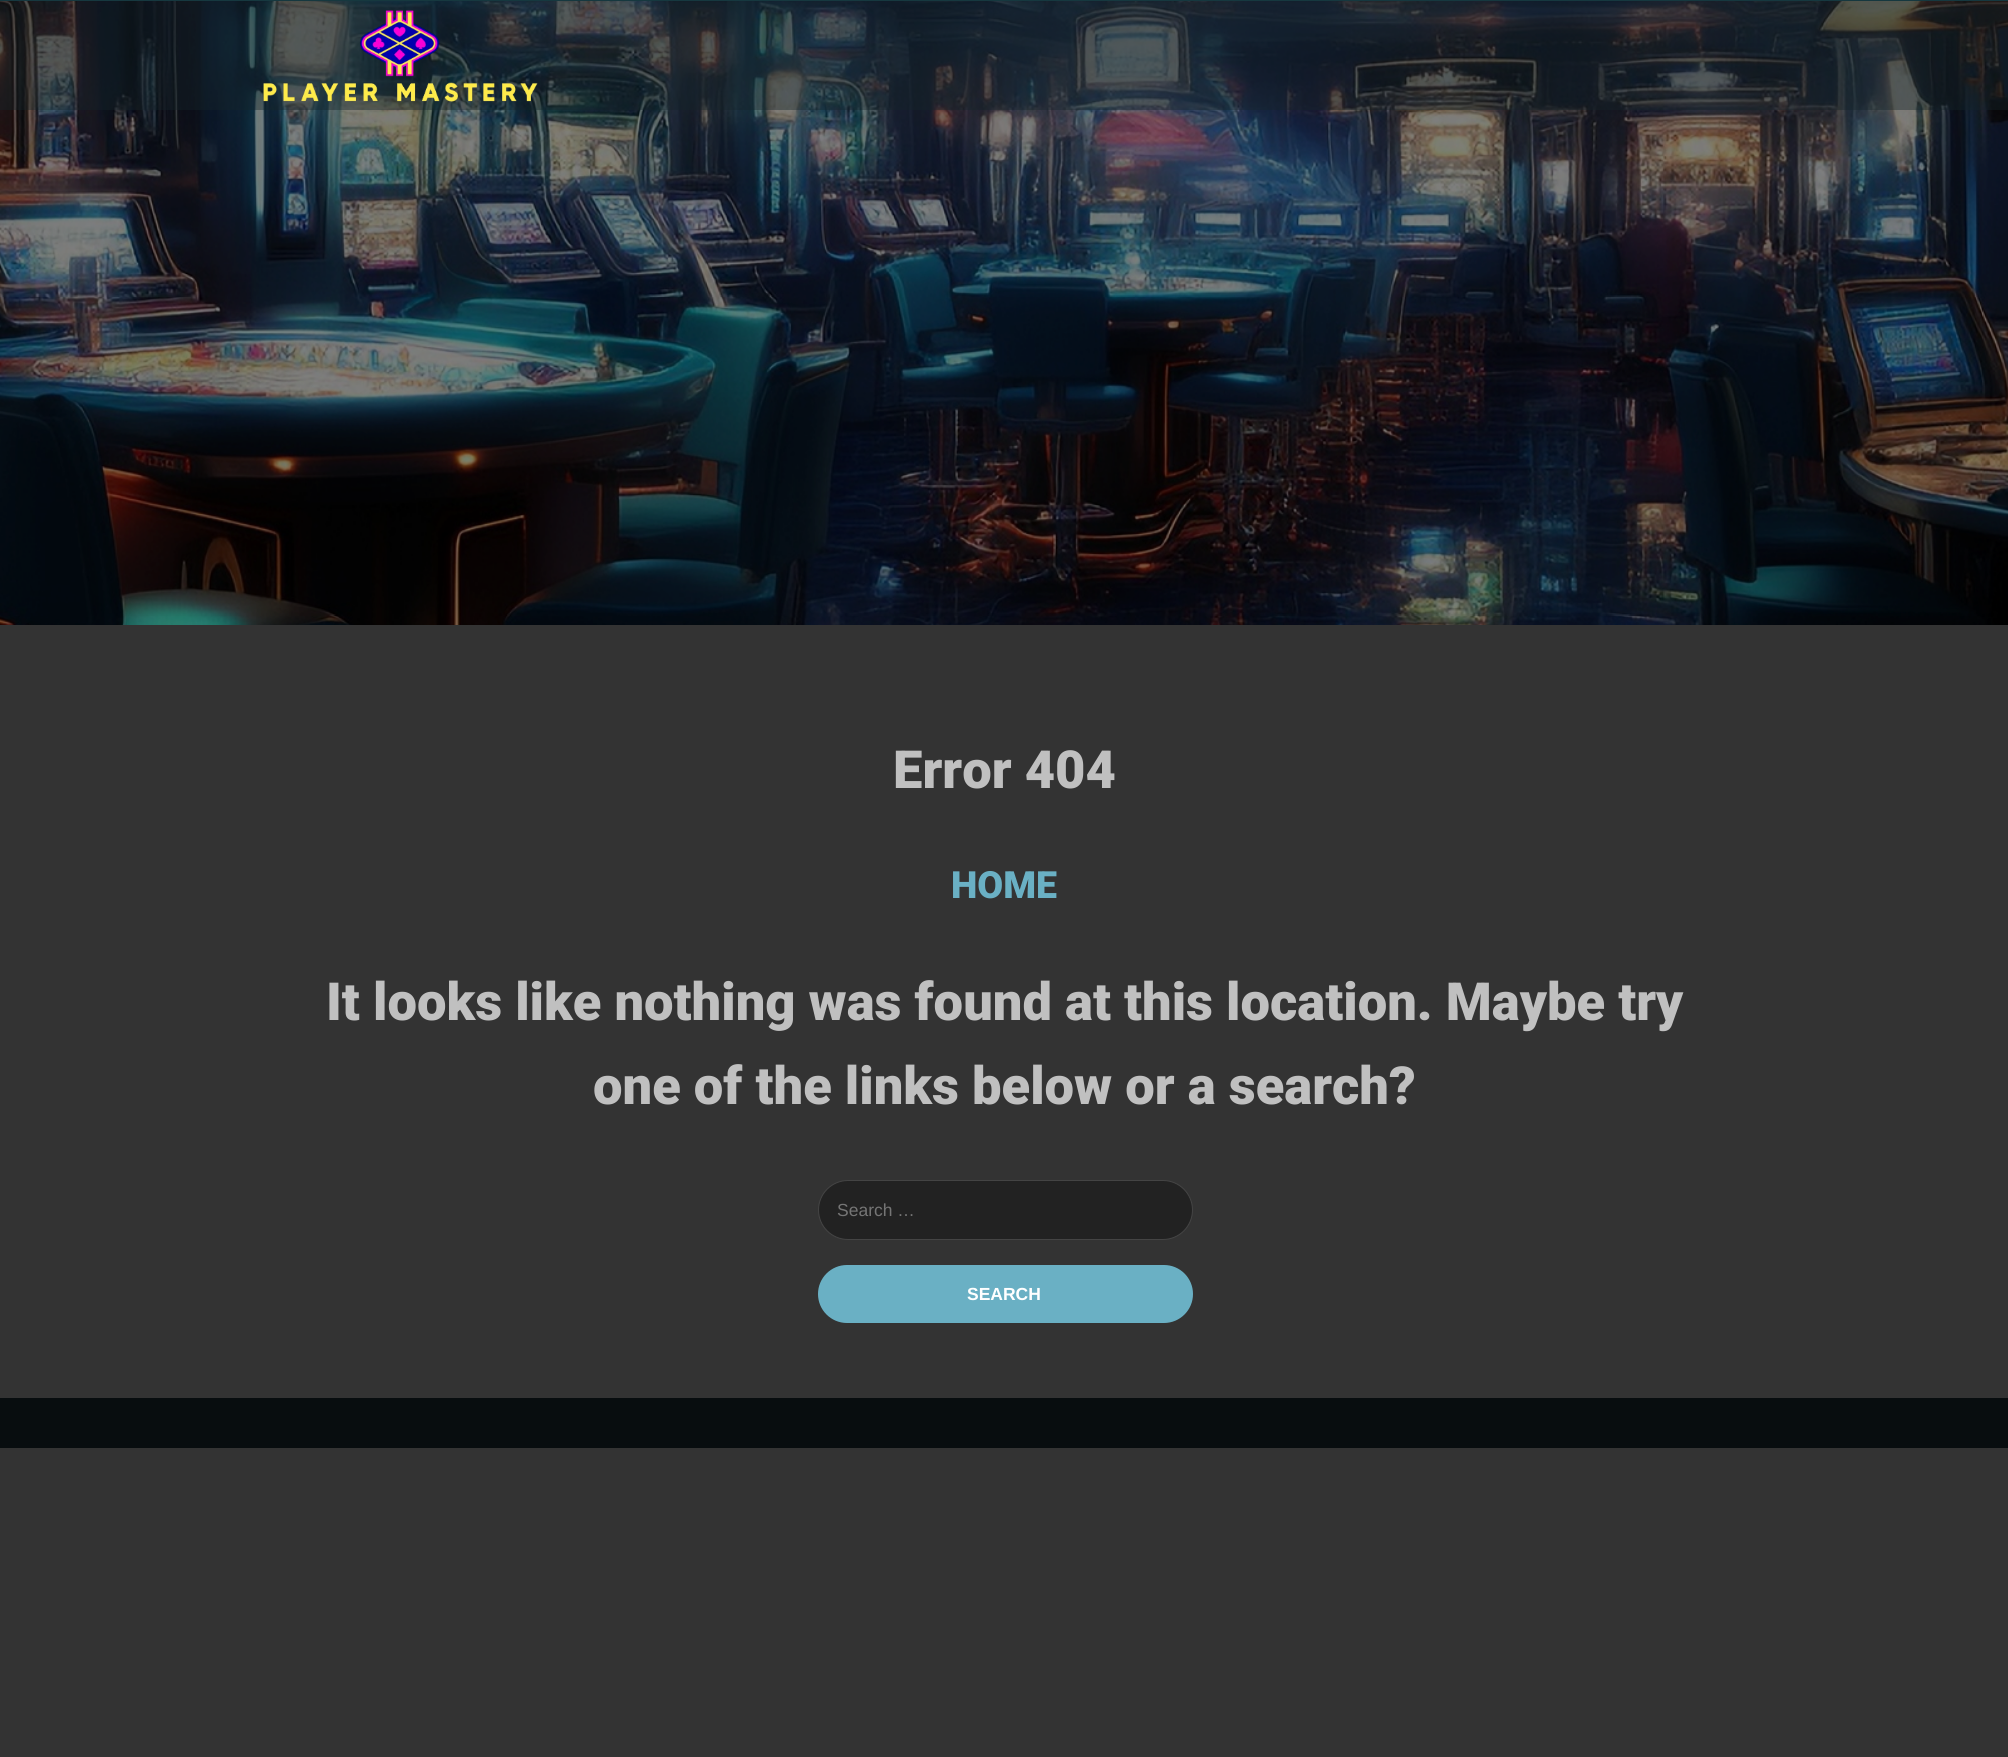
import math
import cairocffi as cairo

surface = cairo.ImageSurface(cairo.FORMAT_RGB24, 2008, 1757)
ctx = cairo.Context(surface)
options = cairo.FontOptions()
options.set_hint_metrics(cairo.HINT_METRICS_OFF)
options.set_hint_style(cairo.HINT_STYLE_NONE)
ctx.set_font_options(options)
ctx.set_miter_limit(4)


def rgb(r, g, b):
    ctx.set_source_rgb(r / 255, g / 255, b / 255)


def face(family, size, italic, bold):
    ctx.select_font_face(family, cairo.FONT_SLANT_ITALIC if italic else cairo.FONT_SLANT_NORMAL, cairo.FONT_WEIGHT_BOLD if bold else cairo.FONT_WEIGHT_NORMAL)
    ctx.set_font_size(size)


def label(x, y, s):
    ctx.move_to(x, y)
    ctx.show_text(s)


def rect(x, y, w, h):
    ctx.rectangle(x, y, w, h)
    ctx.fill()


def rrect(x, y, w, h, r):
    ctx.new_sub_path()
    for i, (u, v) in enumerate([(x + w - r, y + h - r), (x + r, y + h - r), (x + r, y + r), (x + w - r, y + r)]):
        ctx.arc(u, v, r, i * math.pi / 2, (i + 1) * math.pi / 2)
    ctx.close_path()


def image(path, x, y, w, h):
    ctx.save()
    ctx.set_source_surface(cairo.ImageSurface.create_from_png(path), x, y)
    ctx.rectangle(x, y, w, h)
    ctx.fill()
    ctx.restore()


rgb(51, 51, 51)
ctx.paint()
image('image1.png', 0, 1, 2008, 624)
ctx.set_source_rgba(0.086, 0.141, 0.157, 0.4)
rect(0, 1, 2008, 109)
rgb(22, 56, 63)
rect(0, 0, 2008, 1)
image('image0.png', 263, 10, 275, 92)
face('Roboto Black', 52.5, 0, 0)
rgb(192, 192, 192)
label(893, 788, 'Error 404')
face('Roboto Black', 37.5, 0, 0)
rgb(106, 176, 196)
label(951, 898, 'HOME')
face('Roboto Black', 52.5, 0, 0)
rgb(192, 192, 192)
label(326, 1020, 'It looks like nothing was found at this location. Maybe try')
label(593, 1104, 'one of the links below or a search?')
rgb(34, 34, 34)
rrect(818.5, 1180.5, 374, 59, 29.5)
ctx.fill_preserve()
rgb(68, 68, 68)
ctx.set_line_width(1)
ctx.stroke()
face('Liberation Sans', 17.5, 0, 0)
rgb(117, 117, 117)
label(837, 1216, 'Search …')
rgb(106, 176, 196)
rrect(818, 1265, 375, 58, 29)
ctx.fill()
face('Liberation Sans', 17.5, 0, 1)
rgb(255, 255, 255)
label(967, 1300, 'SEARCH')
rgb(8, 13, 15)
rect(0, 1398, 2008, 50)
surface.write_to_png('render.png')
